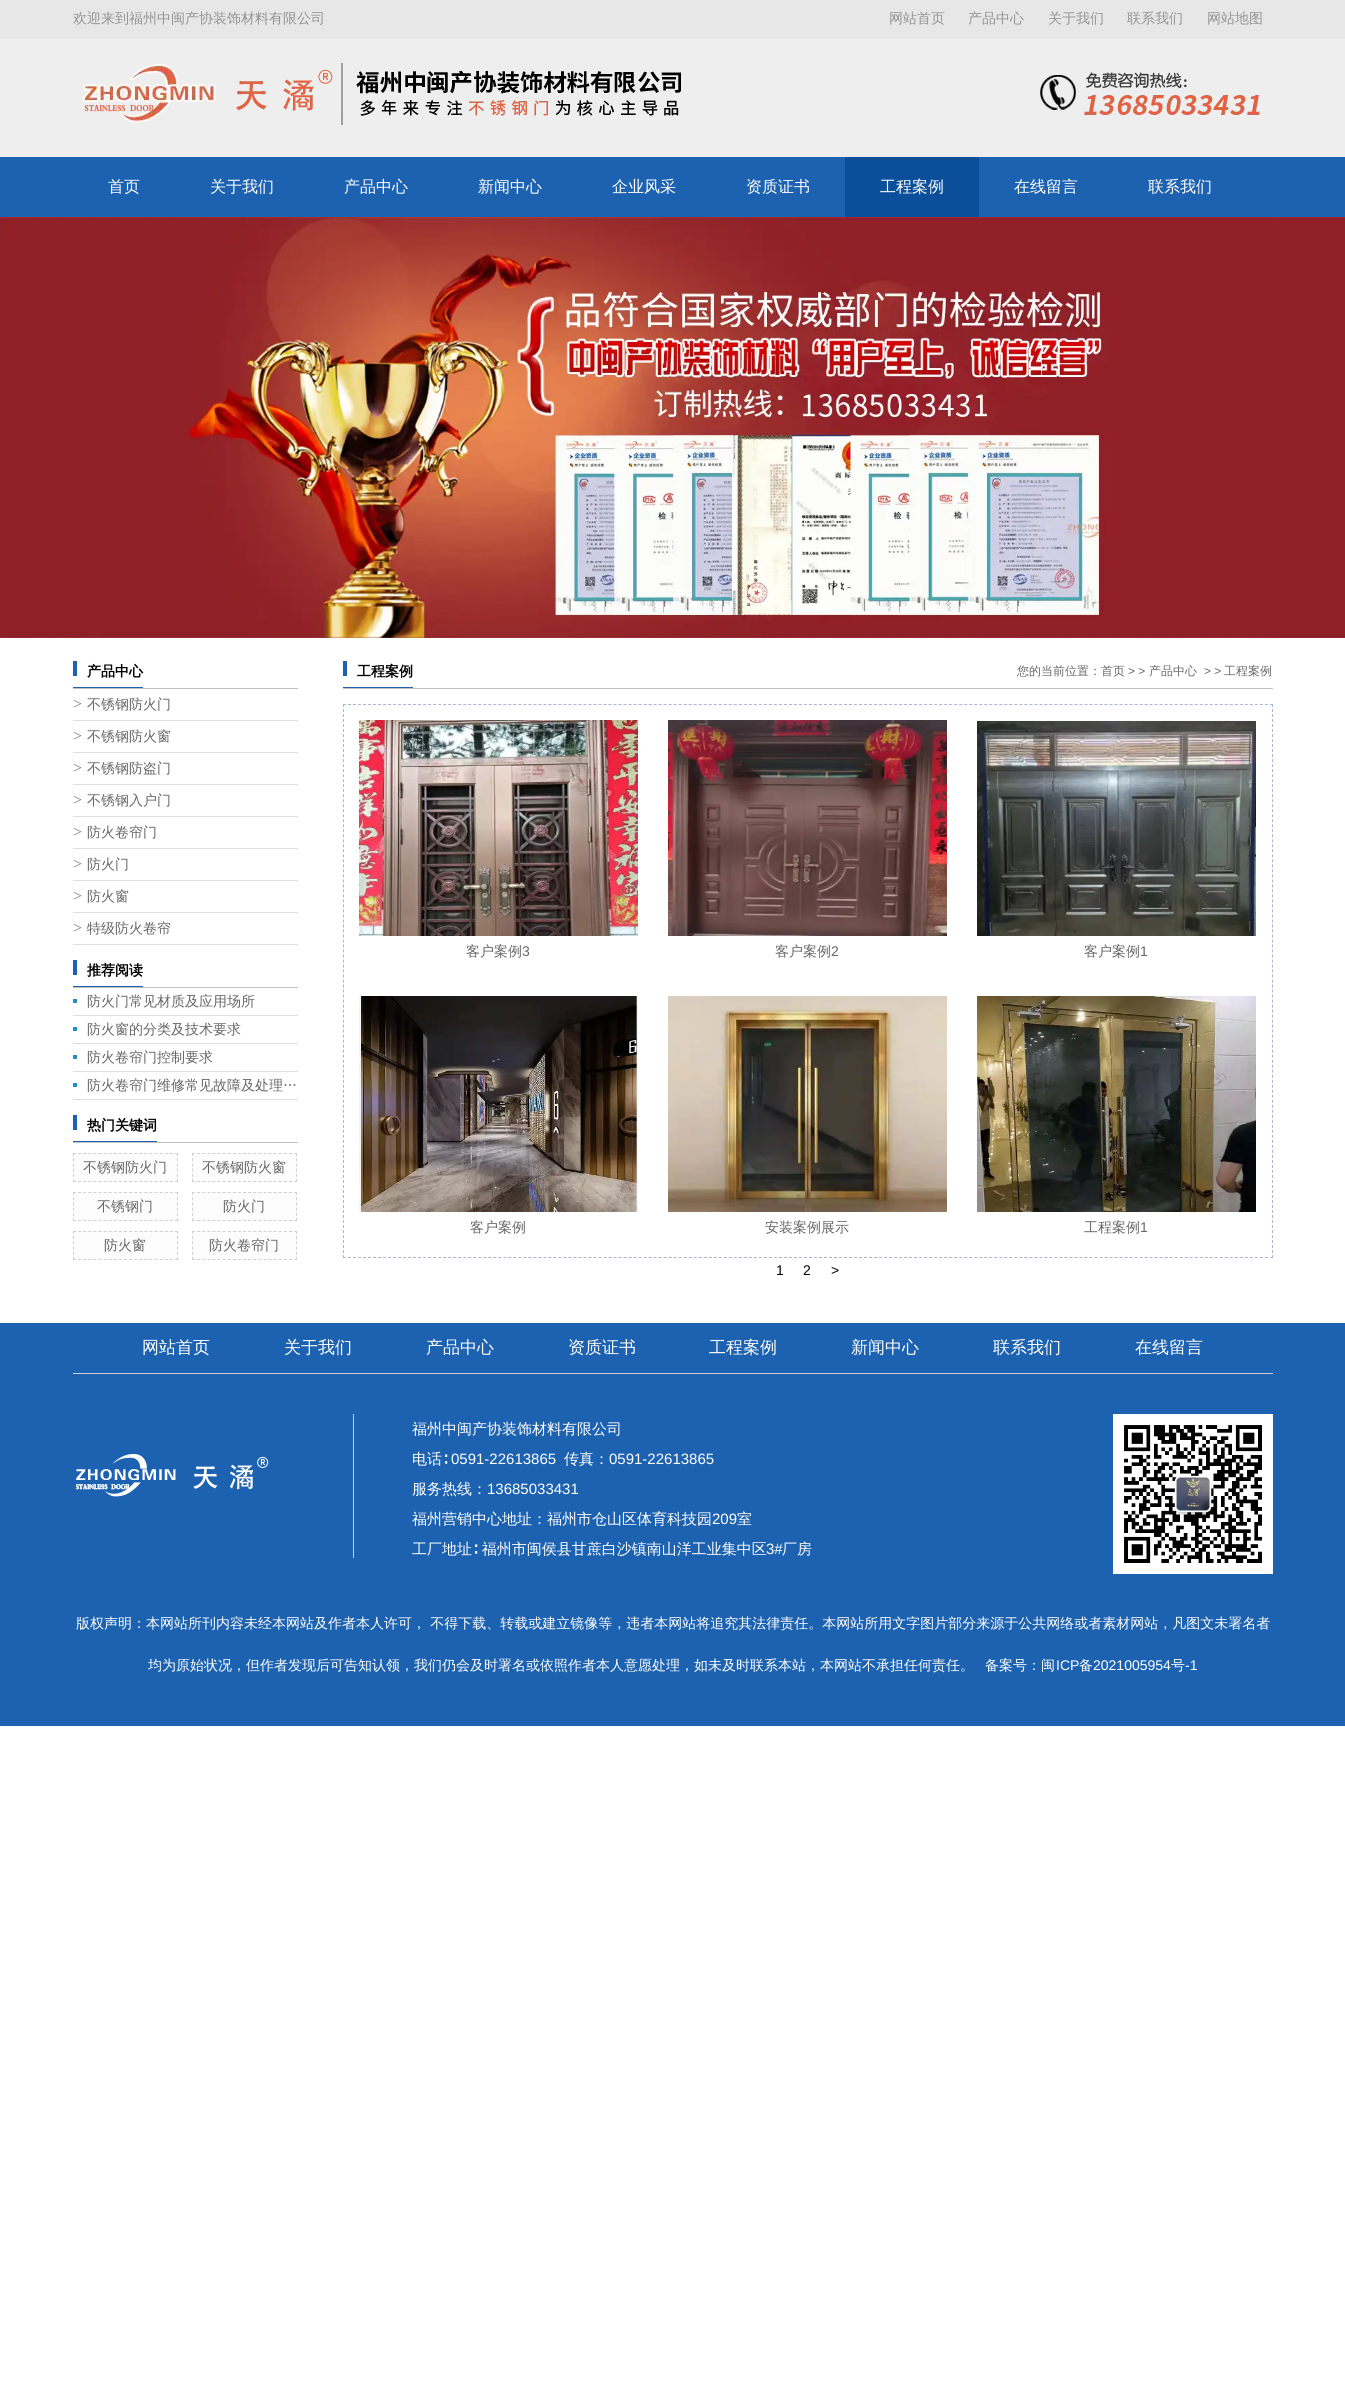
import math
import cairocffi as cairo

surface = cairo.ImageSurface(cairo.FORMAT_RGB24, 1345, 2402)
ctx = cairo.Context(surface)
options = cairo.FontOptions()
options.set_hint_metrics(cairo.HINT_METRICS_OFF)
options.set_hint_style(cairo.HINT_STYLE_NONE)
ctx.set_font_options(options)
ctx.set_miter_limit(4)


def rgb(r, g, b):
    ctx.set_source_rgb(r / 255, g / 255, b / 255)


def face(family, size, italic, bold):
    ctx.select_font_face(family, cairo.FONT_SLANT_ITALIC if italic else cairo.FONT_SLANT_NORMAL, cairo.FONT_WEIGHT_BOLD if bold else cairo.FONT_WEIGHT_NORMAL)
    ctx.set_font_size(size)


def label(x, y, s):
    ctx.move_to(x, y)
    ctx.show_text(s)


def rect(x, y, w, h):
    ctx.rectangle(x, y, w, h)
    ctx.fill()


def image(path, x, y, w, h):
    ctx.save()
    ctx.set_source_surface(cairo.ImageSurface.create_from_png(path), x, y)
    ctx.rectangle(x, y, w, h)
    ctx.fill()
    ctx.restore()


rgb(255, 255, 255)
ctx.paint()
rgb(231, 231, 231)
rect(0, 0, 1345, 39)
face('WenQuanYi Zen Hei Medium', 14, 0, 0)
rgb(148, 148, 148)
label(73, 23, '欢迎来到福州中闽产协装饰材料有限公司')
label(889, 23, '网站首页')
label(968, 23, '产品中心')
label(1048, 23, '关于我们')
label(1127, 23, '联系我们')
label(1207, 23, '网站地图')
rgb(238, 238, 238)
rect(0, 39, 1345, 118)
image('image0.png', 83, 63, 1177, 62)
rgb(28, 98, 176)
rect(0, 157, 1345, 60)
face('WenQuanYi Zen Hei Medium', 16, 0, 0)
rgb(255, 255, 255)
label(108, 192, '首页')
label(210, 192, '关于我们')
label(344, 192, '产品中心')
label(478, 192, '新闻中心')
label(612, 192, '企业风采')
label(746, 192, '资质证书')
rgb(11, 79, 155)
rect(845, 157, 134, 60)
rgb(255, 255, 255)
label(880, 192, '工程案例')
label(1014, 192, '在线留言')
label(1148, 192, '联系我们')
image('image1.png', 0, 217, 1345, 421)
rgb(193, 193, 193)
rect(73, 688, 225, 1)
rgb(28, 98, 176)
rect(73, 687, 70, 1)
rect(73, 661, 4, 15)
face('WenQuanYi Zen Hei', 14, 0, 1)
rgb(0, 0, 0)
label(87, 676, '产品中心')
rgb(221, 221, 221)
rect(73, 720, 225, 1)
face('Liberation Serif', 16, 0, 0)
rgb(124, 124, 124)
label(73, 709, '>')
face('WenQuanYi Zen Hei Medium', 14, 0, 0)
rgb(102, 102, 102)
label(87, 709, '不锈钢防火门')
rgb(221, 221, 221)
rect(73, 752, 225, 1)
face('Liberation Serif', 16, 0, 0)
rgb(124, 124, 124)
label(73, 741, '>')
face('WenQuanYi Zen Hei Medium', 14, 0, 0)
rgb(102, 102, 102)
label(87, 741, '不锈钢防火窗')
rgb(221, 221, 221)
rect(73, 784, 225, 1)
face('Liberation Serif', 16, 0, 0)
rgb(124, 124, 124)
label(73, 773, '>')
face('WenQuanYi Zen Hei Medium', 14, 0, 0)
rgb(102, 102, 102)
label(87, 773, '不锈钢防盗门')
rgb(221, 221, 221)
rect(73, 816, 225, 1)
face('Liberation Serif', 16, 0, 0)
rgb(124, 124, 124)
label(73, 805, '>')
face('WenQuanYi Zen Hei Medium', 14, 0, 0)
rgb(102, 102, 102)
label(87, 805, '不锈钢入户门')
rgb(221, 221, 221)
rect(73, 848, 225, 1)
face('Liberation Serif', 16, 0, 0)
rgb(124, 124, 124)
label(73, 837, '>')
face('WenQuanYi Zen Hei Medium', 14, 0, 0)
rgb(102, 102, 102)
label(87, 837, '防火卷帘门')
rgb(221, 221, 221)
rect(73, 880, 225, 1)
face('Liberation Serif', 16, 0, 0)
rgb(124, 124, 124)
label(73, 869, '>')
face('WenQuanYi Zen Hei Medium', 14, 0, 0)
rgb(102, 102, 102)
label(87, 869, '防火门')
rgb(221, 221, 221)
rect(73, 912, 225, 1)
face('Liberation Serif', 16, 0, 0)
rgb(124, 124, 124)
label(73, 901, '>')
face('WenQuanYi Zen Hei Medium', 14, 0, 0)
rgb(102, 102, 102)
label(87, 901, '防火窗')
rgb(221, 221, 221)
rect(73, 944, 225, 1)
face('Liberation Serif', 16, 0, 0)
rgb(124, 124, 124)
label(73, 933, '>')
face('WenQuanYi Zen Hei Medium', 14, 0, 0)
rgb(102, 102, 102)
label(87, 933, '特级防火卷帘')
rgb(193, 193, 193)
rect(73, 987, 225, 1)
rgb(28, 98, 176)
rect(73, 986, 70, 1)
rect(73, 960, 4, 15)
face('WenQuanYi Zen Hei', 14, 0, 1)
rgb(0, 0, 0)
label(87, 975, '推荐阅读')
rgb(221, 221, 221)
rect(73, 1015, 225, 1)
rgb(37, 141, 204)
rect(73, 999, 4, 4)
face('WenQuanYi Zen Hei Medium', 14, 0, 0)
rgb(102, 102, 102)
label(87, 1006, '防火门常见材质及应用场所')
rgb(221, 221, 221)
rect(73, 1043, 225, 1)
rgb(37, 141, 204)
rect(73, 1027, 4, 4)
rgb(102, 102, 102)
label(87, 1034, '防火窗的分类及技术要求')
rgb(221, 221, 221)
rect(73, 1071, 225, 1)
rgb(37, 141, 204)
rect(73, 1055, 4, 4)
rgb(102, 102, 102)
label(87, 1062, '防火卷帘门控制要求')
rgb(221, 221, 221)
rect(73, 1099, 225, 1)
rgb(37, 141, 204)
rect(73, 1083, 4, 4)
rgb(102, 102, 102)
label(87, 1090, '防火卷帘门维修常见故障及处理…')
rgb(193, 193, 193)
rect(73, 1142, 225, 1)
rgb(28, 98, 176)
rect(73, 1141, 84, 1)
rect(73, 1115, 4, 15)
face('WenQuanYi Zen Hei', 14, 0, 1)
rgb(0, 0, 0)
label(87, 1130, '热门关键词')
rgb(252, 252, 252)
rect(73, 1153, 105, 29)
ctx.new_path()
ctx.move_to(73, 1153.5)
ctx.line_to(178, 1153.5)
rgb(208, 208, 208)
ctx.set_line_width(1)
ctx.set_dash([3, 2.1])
ctx.stroke()
ctx.new_path()
ctx.move_to(177.5, 1153)
ctx.line_to(177.5, 1182)
ctx.set_dash([3, 2.2])
ctx.stroke()
ctx.new_path()
ctx.move_to(73, 1181.5)
ctx.line_to(178, 1181.5)
ctx.set_dash([3, 2.1])
ctx.stroke()
ctx.new_path()
ctx.move_to(73.5, 1153)
ctx.line_to(73.5, 1182)
ctx.set_dash([3, 2.2])
ctx.stroke()
face('WenQuanYi Zen Hei Medium', 14, 0, 0)
rgb(102, 102, 102)
label(83, 1172, '不锈钢防火门')
rgb(252, 252, 252)
rect(192, 1153, 105, 29)
ctx.new_path()
ctx.move_to(192, 1153.5)
ctx.line_to(297, 1153.5)
rgb(208, 208, 208)
ctx.set_dash([3, 2.1])
ctx.stroke()
ctx.new_path()
ctx.move_to(296.5, 1153)
ctx.line_to(296.5, 1182)
ctx.set_dash([3, 2.2])
ctx.stroke()
ctx.new_path()
ctx.move_to(192, 1181.5)
ctx.line_to(297, 1181.5)
ctx.set_dash([3, 2.1])
ctx.stroke()
ctx.new_path()
ctx.move_to(192.5, 1153)
ctx.line_to(192.5, 1182)
ctx.set_dash([3, 2.2])
ctx.stroke()
rgb(102, 102, 102)
label(202, 1172, '不锈钢防火窗')
rgb(252, 252, 252)
rect(73, 1192, 105, 29)
ctx.new_path()
ctx.move_to(73, 1192.5)
ctx.line_to(178, 1192.5)
rgb(208, 208, 208)
ctx.set_dash([3, 2.1])
ctx.stroke()
ctx.new_path()
ctx.move_to(177.5, 1192)
ctx.line_to(177.5, 1221)
ctx.set_dash([3, 2.2])
ctx.stroke()
ctx.new_path()
ctx.move_to(73, 1220.5)
ctx.line_to(178, 1220.5)
ctx.set_dash([3, 2.1])
ctx.stroke()
ctx.new_path()
ctx.move_to(73.5, 1192)
ctx.line_to(73.5, 1221)
ctx.set_dash([3, 2.2])
ctx.stroke()
rgb(102, 102, 102)
label(97, 1211, '不锈钢门')
rgb(252, 252, 252)
rect(192, 1192, 105, 29)
ctx.new_path()
ctx.move_to(192, 1192.5)
ctx.line_to(297, 1192.5)
rgb(208, 208, 208)
ctx.set_dash([3, 2.1])
ctx.stroke()
ctx.new_path()
ctx.move_to(296.5, 1192)
ctx.line_to(296.5, 1221)
ctx.set_dash([3, 2.2])
ctx.stroke()
ctx.new_path()
ctx.move_to(192, 1220.5)
ctx.line_to(297, 1220.5)
ctx.set_dash([3, 2.1])
ctx.stroke()
ctx.new_path()
ctx.move_to(192.5, 1192)
ctx.line_to(192.5, 1221)
ctx.set_dash([3, 2.2])
ctx.stroke()
rgb(102, 102, 102)
label(223, 1211, '防火门')
rgb(252, 252, 252)
rect(73, 1231, 105, 29)
ctx.new_path()
ctx.move_to(73, 1231.5)
ctx.line_to(178, 1231.5)
rgb(208, 208, 208)
ctx.set_dash([3, 2.1])
ctx.stroke()
ctx.new_path()
ctx.move_to(177.5, 1231)
ctx.line_to(177.5, 1260)
ctx.set_dash([3, 2.2])
ctx.stroke()
ctx.new_path()
ctx.move_to(73, 1259.5)
ctx.line_to(178, 1259.5)
ctx.set_dash([3, 2.1])
ctx.stroke()
ctx.new_path()
ctx.move_to(73.5, 1231)
ctx.line_to(73.5, 1260)
ctx.set_dash([3, 2.2])
ctx.stroke()
rgb(102, 102, 102)
label(104, 1250, '防火窗')
rgb(252, 252, 252)
rect(192, 1231, 105, 29)
ctx.new_path()
ctx.move_to(192, 1231.5)
ctx.line_to(297, 1231.5)
rgb(208, 208, 208)
ctx.set_dash([3, 2.1])
ctx.stroke()
ctx.new_path()
ctx.move_to(296.5, 1231)
ctx.line_to(296.5, 1260)
ctx.set_dash([3, 2.2])
ctx.stroke()
ctx.new_path()
ctx.move_to(192, 1259.5)
ctx.line_to(297, 1259.5)
ctx.set_dash([3, 2.1])
ctx.stroke()
ctx.new_path()
ctx.move_to(192.5, 1231)
ctx.line_to(192.5, 1260)
ctx.set_dash([3, 2.2])
ctx.stroke()
rgb(102, 102, 102)
label(209, 1250, '防火卷帘门')
rgb(193, 193, 193)
rect(343, 688, 930, 1)
rgb(28, 98, 176)
rect(343, 687, 70, 1)
rect(343, 661, 4, 15)
face('WenQuanYi Zen Hei', 14, 0, 1)
rgb(0, 0, 0)
label(357, 676, '工程案例')
face('WenQuanYi Zen Hei Medium', 12, 0, 0)
rgb(102, 102, 102)
label(1017, 675, '您的当前位置：首页')
face('Liberation Sans', 12, 0, 0)
label(1128, 675, '> >')
face('WenQuanYi Zen Hei Medium', 12, 0, 0)
label(1149, 675, '产品中心')
face('Liberation Sans', 12, 0, 0)
label(1204, 675, '> >')
face('WenQuanYi Zen Hei Medium', 12, 0, 0)
label(1224, 675, '工程案例')
ctx.new_path()
ctx.move_to(343, 704.5)
ctx.line_to(1273, 704.5)
rgb(167, 184, 212)
ctx.set_dash([3, 2.01])
ctx.stroke()
ctx.new_path()
ctx.move_to(1272.5, 704)
ctx.line_to(1272.5, 1258)
ctx.stroke()
ctx.new_path()
ctx.move_to(343, 1257.5)
ctx.line_to(1273, 1257.5)
ctx.stroke()
ctx.new_path()
ctx.move_to(343.5, 704)
ctx.line_to(343.5, 1258)
ctx.stroke()
image('image2.png', 359, 720, 279, 216)
face('WenQuanYi Zen Hei Medium', 14, 0, 0)
rgb(102, 102, 102)
label(466, 956, '客户案例')
face('Liberation Sans', 14, 0, 0)
label(522, 956, '3')
image('image3.png', 668, 720, 279, 216)
face('WenQuanYi Zen Hei Medium', 14, 0, 0)
label(775, 956, '客户案例')
face('Liberation Sans', 14, 0, 0)
label(831, 956, '2')
image('image4.png', 977, 720, 279, 216)
face('WenQuanYi Zen Hei Medium', 14, 0, 0)
label(1084, 956, '客户案例')
face('Liberation Sans', 14, 0, 0)
label(1140, 956, '1')
image('image5.png', 359, 996, 279, 216)
face('WenQuanYi Zen Hei Medium', 14, 0, 0)
label(470, 1232, '客户案例')
image('image6.png', 668, 996, 279, 216)
label(765, 1232, '安装案例展示')
image('image7.png', 977, 996, 279, 216)
label(1084, 1232, '工程案例')
face('Liberation Sans', 14, 0, 0)
label(1140, 1232, '1')
rgb(0, 0, 0)
label(776, 1275, '1')
label(803, 1275, '2')
label(831, 1275, '>')
rgb(28, 98, 176)
rect(0, 1323, 1345, 403)
rgb(208, 208, 208)
rect(73, 1373, 1200, 1)
face('WenQuanYi Zen Hei Medium', 17, 0, 0)
rgb(255, 255, 255)
label(142, 1353, '网站首页')
label(284, 1353, '关于我们')
label(426, 1353, '产品中心')
label(568, 1353, '资质证书')
label(709, 1353, '工程案例')
label(851, 1353, '新闻中心')
label(993, 1353, '联系我们')
label(1135, 1353, '在线留言')
rgb(204, 204, 204)
rect(353, 1414, 1, 144)
image('image8.png', 76, 1454, 193, 43)
face('WenQuanYi Zen Hei Medium', 15, 0, 0)
rgb(255, 255, 255)
label(412, 1434, '福州中闽产协装饰材料有限公司')
label(412, 1464, '电话∶')
face('Liberation Sans', 15, 0, 0)
label(451, 1464, '0591-22613865')
face('WenQuanYi Zen Hei Medium', 15, 0, 0)
label(564, 1464, '传真：')
face('Liberation Sans', 15, 0, 0)
label(609, 1464, '0591-22613865')
face('WenQuanYi Zen Hei Medium', 15, 0, 0)
label(412, 1494, '服务热线：')
face('Liberation Sans', 15, 0, 0)
label(487, 1494, '13685033431')
face('WenQuanYi Zen Hei Medium', 15, 0, 0)
label(412, 1524, '福州营销中心地址：福州市仓山区体育科技园')
face('Liberation Sans', 15, 0, 0)
label(712, 1524, '209')
face('WenQuanYi Zen Hei Medium', 15, 0, 0)
label(737, 1524, '室')
label(412, 1554, '工厂地址∶ 福州市闽侯县甘蔗白沙镇南山洋工业集中区')
face('Liberation Sans', 15, 0, 0)
label(766, 1554, '3#')
face('WenQuanYi Zen Hei Medium', 15, 0, 0)
label(782, 1554, '厂房')
image('image9.png', 1113, 1414, 160, 160)
face('WenQuanYi Zen Hei Medium', 14, 0, 0)
label(76, 1628, '版权声明：本网站所刊内容未经本网站及作者本人许可， 不得下载、转载或建立镜像等，违者本网站将追究其法律责任。本网站所用文字图片部分来源于公共网络或者素材网站，凡图文未署名者')
label(148, 1670, '均为原始状况，但作者发现后可告知认领，我们仍会及时署名或依照作者本人意愿处理，如未及时联系本站，本网站不承担任何责任。')
label(985, 1670, '备案号：闽')
face('Liberation Sans', 14, 0, 0)
label(1056, 1670, 'ICP')
face('WenQuanYi Zen Hei Medium', 14, 0, 0)
label(1079, 1670, '备')
face('Liberation Sans', 14, 0, 0)
label(1093, 1670, '2021005954')
face('WenQuanYi Zen Hei Medium', 14, 0, 0)
label(1171, 1670, '号')
face('Liberation Sans', 14, 0, 0)
label(1185, 1670, '-1')
surface.write_to_png('render.png')
